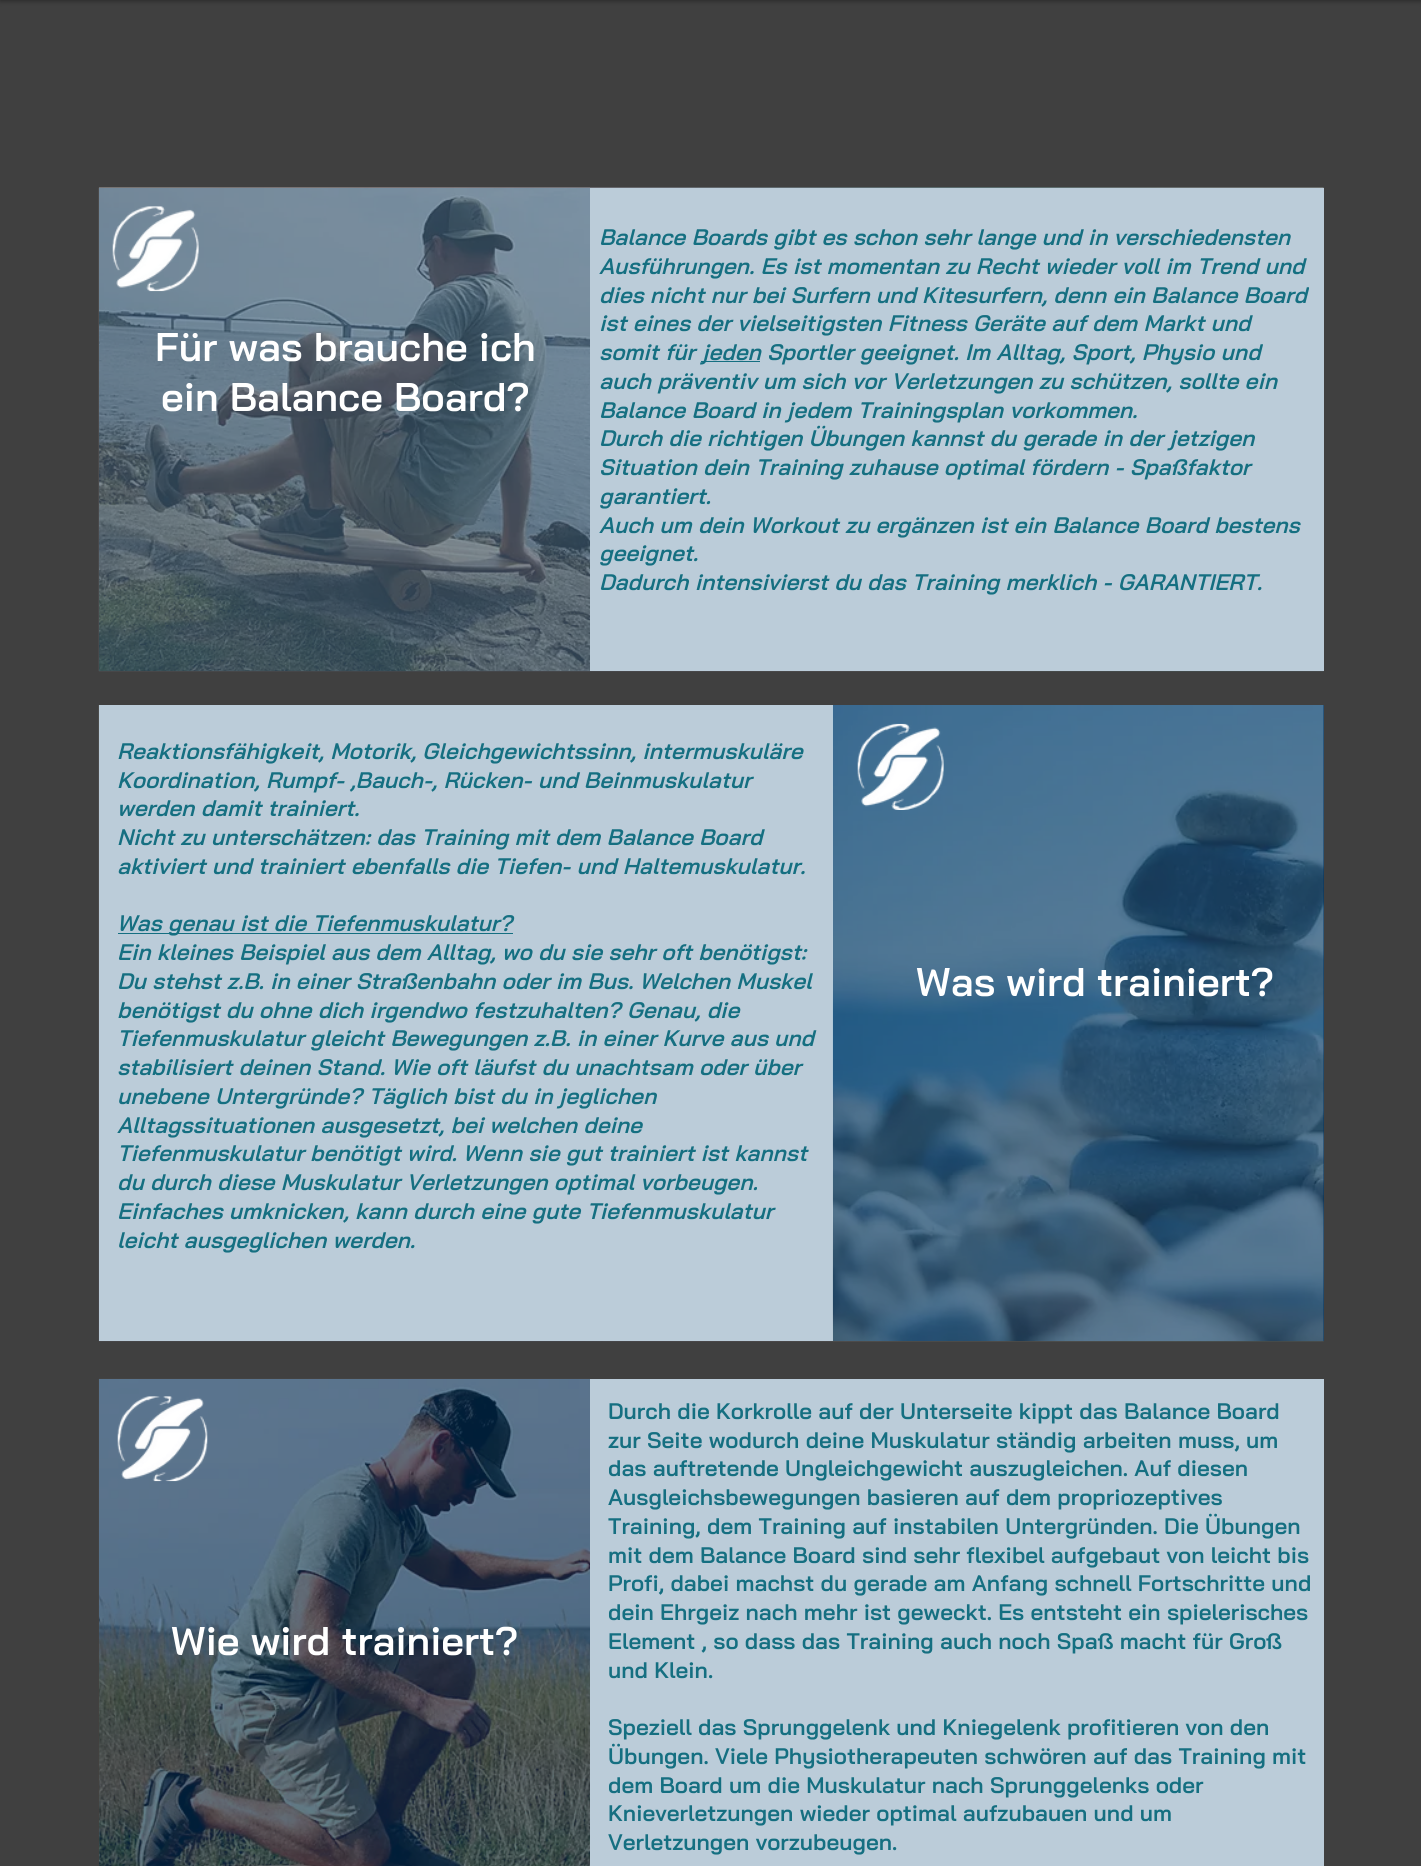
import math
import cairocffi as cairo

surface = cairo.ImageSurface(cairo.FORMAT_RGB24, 1421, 1866)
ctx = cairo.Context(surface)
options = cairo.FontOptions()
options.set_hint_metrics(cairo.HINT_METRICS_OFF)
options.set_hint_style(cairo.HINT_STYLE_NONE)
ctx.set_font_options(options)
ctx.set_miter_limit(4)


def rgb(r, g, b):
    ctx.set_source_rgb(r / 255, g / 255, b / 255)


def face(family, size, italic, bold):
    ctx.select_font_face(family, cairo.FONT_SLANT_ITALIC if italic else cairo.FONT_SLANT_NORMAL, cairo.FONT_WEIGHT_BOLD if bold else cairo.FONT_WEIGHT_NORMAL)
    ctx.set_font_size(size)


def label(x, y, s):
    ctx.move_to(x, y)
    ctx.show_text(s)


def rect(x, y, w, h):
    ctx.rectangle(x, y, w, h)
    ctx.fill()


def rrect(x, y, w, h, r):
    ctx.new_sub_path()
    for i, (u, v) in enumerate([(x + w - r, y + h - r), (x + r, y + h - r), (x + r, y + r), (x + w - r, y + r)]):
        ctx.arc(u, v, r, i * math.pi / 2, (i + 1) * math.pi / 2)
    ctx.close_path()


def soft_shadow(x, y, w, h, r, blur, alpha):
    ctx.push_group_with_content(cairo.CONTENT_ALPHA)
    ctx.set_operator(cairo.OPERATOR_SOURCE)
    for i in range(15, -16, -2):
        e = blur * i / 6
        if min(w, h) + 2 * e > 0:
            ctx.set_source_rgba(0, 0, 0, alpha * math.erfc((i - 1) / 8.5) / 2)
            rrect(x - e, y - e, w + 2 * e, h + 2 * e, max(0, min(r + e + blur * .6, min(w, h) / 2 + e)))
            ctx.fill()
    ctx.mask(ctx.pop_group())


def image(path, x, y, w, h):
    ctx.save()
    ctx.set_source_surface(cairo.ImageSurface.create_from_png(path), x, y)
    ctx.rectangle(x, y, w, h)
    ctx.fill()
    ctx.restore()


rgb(64, 64, 64)
ctx.paint()
rgb(0, 0, 0)
soft_shadow(0, -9, 1421, 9, 0, 3, 0.5)
image('image0.png', 98, 187, 1226, 485)
rgb(68, 100, 124)
rect(99, 188, 491, 483)
image('image1.png', 99, 187, 491, 484)
image('image2.png', 112, 206, 87, 86)
face('Bai Jamjuree SemiBold', 40, 0, 0)
rgb(255, 255, 255)
label(155, 361, 'Für was brauche ich')
label(161, 411, 'ein Balance Board?')
rgb(187, 204, 217)
rect(590, 188, 734, 483)
face('Bai Jamjuree SemiBold', 22.5, 1, 0)
rgb(21, 111, 129)
label(599, 245, 'Balance Boards gibt es schon sehr lange und in verschiedensten')
label(599, 274, 'Ausführungen. Es ist momentan zu Recht wieder voll im Trend und')
label(599, 303, 'dies nicht nur bei Surfern und Kitesurfern, denn ein Balance Board')
label(599, 331, 'ist eines der vielseitigsten Fitness Geräte auf dem Markt und')
label(599, 360, 'somit für')
rect(701, 361, 59, 1)
label(702, 360, 'jeden Sportler geeignet. Im Alltag, Sport, Physio und')
label(599, 389, 'auch präventiv um sich vor Verletzungen zu schützen, sollte ein')
label(599, 418, 'Balance Board in jedem Trainingsplan vorkommen.')
label(599, 446, 'Durch die richtigen Übungen kannst du gerade in der jetzigen')
label(599, 475, 'Situation dein Training zuhause optimal fördern - Spaßfaktor')
label(599, 504, 'garantiert.')
label(599, 533, 'Auch um dein Workout zu ergänzen ist ein Balance Board bestens')
label(599, 561, 'geeignet.')
label(599, 590, 'Dadurch intensivierst du das Training merklich - GARANTIERT.')
image('image3.png', 98, 705, 1226, 637)
rgb(187, 204, 217)
rect(99, 705, 734, 636)
rgb(21, 111, 129)
label(117, 759, 'Reaktionsfähigkeit, Motorik, Gleichgewichtssinn, intermuskuläre')
label(117, 788, 'Koordination, Rumpf- ,Bauch-, Rücken- und Beinmuskulatur')
label(117, 816, 'werden damit trainiert.')
label(117, 845, 'Nicht zu unterschätzen: das Training mit dem Balance Board')
label(117, 874, 'aktiviert und trainiert ebenfalls die Tiefen- und Haltemuskulatur.')
rect(118, 933, 395, 1)
label(117, 931, 'Was genau ist die Tiefenmuskulatur?')
label(117, 960, 'Ein kleines Beispiel aus dem Alltag, wo du sie sehr oft benötigst:')
label(117, 989, 'Du stehst z.B. in einer Straßenbahn oder im Bus. Welchen Muskel')
label(117, 1018, 'benötigst du ohne dich irgendwo festzuhalten? Genau, die')
label(117, 1046, 'Tiefenmuskulatur gleicht Bewegungen z.B. in einer Kurve aus und')
label(117, 1075, 'stabilisiert deinen Stand. Wie oft läufst du unachtsam oder über')
label(117, 1104, 'unebene Untergründe? Täglich bist du in jeglichen')
label(117, 1133, 'Alltagssituationen ausgesetzt, bei welchen deine')
label(117, 1161, 'Tiefenmuskulatur benötigt wird. Wenn sie gut trainiert ist kannst')
label(117, 1190, 'du durch diese Muskulatur Verletzungen optimal vorbeugen.')
label(117, 1219, 'Einfaches umknicken, kann durch eine gute Tiefenmuskulatur')
label(117, 1248, 'leicht ausgeglichen werden.')
rgb(0, 48, 91)
rect(833, 705, 491, 636)
image('image4.png', 832, 705, 492, 637)
image('image5.png', 857, 723, 87, 87)
face('Bai Jamjuree SemiBold', 40, 0, 0)
rgb(255, 255, 255)
label(916, 996, 'Was wird trainiert?')
rgb(187, 204, 217)
rect(590, 1379, 734, 487)
rgb(0, 48, 91)
rect(99, 1379, 491, 487)
image('image6.png', 98, 1378, 492, 488)
image('image7.png', 117, 1396, 91, 86)
rgb(255, 255, 255)
label(171, 1655, 'Wie wird trainiert?')
face('Bai Jamjuree SemiBold', 22.5, 0, 0)
rgb(21, 111, 129)
label(608, 1419, 'Durch die Korkrolle auf der Unterseite kippt das Balance Board')
label(608, 1448, 'zur Seite wodurch deine Muskulatur ständig arbeiten muss, um')
label(608, 1476, 'das auftretende Ungleichgewicht auszugleichen. Auf diesen')
label(608, 1505, 'Ausgleichsbewegungen basieren auf dem propriozeptives')
label(608, 1534, 'Training, dem Training auf instabilen Untergründen. Die Übungen')
label(608, 1563, 'mit dem Balance Board sind sehr flexibel aufgebaut von leicht bis')
label(608, 1591, 'Profi, dabei machst du gerade am Anfang schnell Fortschritte und')
label(608, 1620, 'dein Ehrgeiz nach mehr ist geweckt. Es entsteht ein spielerisches')
label(608, 1649, 'Element , so dass das Training auch noch Spaß macht für Groß')
label(608, 1678, 'und Klein.')
label(608, 1735, 'Speziell das Sprunggelenk und Kniegelenk profitieren von den')
label(608, 1764, 'Übungen. Viele Physiotherapeuten schwören auf das Training mit')
label(608, 1793, 'dem Board um die Muskulatur nach Sprunggelenks oder')
label(608, 1821, 'Knieverletzungen wieder optimal aufzubauen und um')
label(608, 1850, 'Verletzungen vorzubeugen.')
surface.write_to_png('render.png')
